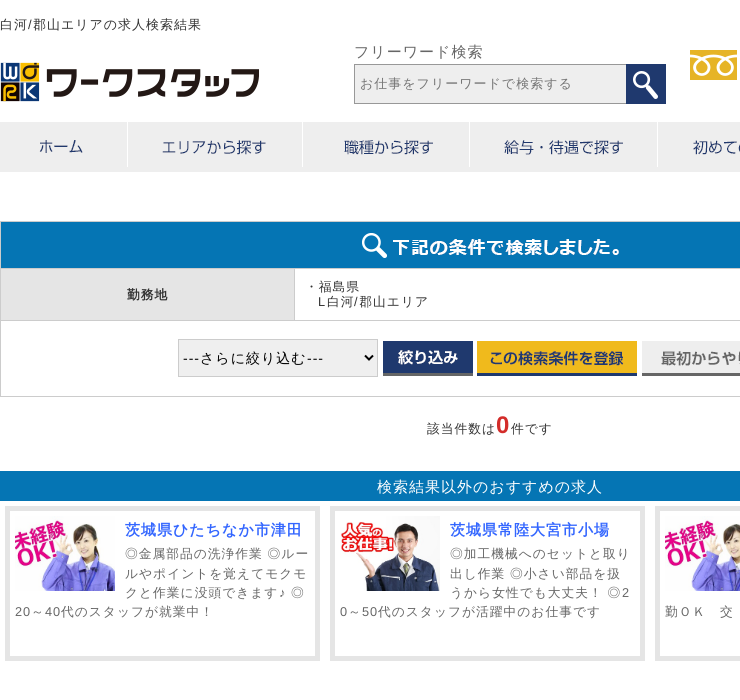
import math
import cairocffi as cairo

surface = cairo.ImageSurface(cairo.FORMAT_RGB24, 740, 700)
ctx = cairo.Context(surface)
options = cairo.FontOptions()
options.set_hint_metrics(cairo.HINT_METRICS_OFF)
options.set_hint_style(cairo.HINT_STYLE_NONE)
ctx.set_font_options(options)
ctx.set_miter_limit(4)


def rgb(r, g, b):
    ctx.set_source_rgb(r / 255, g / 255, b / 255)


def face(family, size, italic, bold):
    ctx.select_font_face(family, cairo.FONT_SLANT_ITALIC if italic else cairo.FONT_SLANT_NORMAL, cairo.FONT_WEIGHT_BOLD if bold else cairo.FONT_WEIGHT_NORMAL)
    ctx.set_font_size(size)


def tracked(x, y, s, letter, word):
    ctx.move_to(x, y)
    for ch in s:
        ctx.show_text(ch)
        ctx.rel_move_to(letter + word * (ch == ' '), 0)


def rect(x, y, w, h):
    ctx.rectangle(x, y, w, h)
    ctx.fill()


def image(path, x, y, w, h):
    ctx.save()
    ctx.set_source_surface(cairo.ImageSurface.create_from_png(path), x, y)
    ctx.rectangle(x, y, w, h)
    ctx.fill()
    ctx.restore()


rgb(255, 255, 255)
ctx.paint()
face('WenQuanYi Zen Hei Medium', 13, 0, 0)
rgb(51, 51, 51)
tracked(0, 29, '白河 郡山エリアの求人検索結果', 1, 0)
face('Liberation Sans', 13, 0, 0)
tracked(28, 29, '/', 1, 0)
image('image0.png', 0, 62, 259, 40)
face('WenQuanYi Zen Hei Medium', 15, 0, 0)
rgb(102, 102, 102)
tracked(354, 57, 'フリーワード検索', 1, 0)
rgb(238, 238, 238)
rect(355, 65, 271, 38)
rgb(152, 152, 152)
rect(354, 64, 272, 1)
rect(354, 103, 272, 1)
rect(354, 64, 1, 40)
face('WenQuanYi Zen Hei Medium', 13, 0, 0)
rgb(117, 117, 117)
tracked(360, 88, 'お仕事をフリーワードで検索する', 1, 0)
image('image1.png', 626, 64, 40, 40)
image('image2.png', 690, 50, 47, 30)
rgb(238, 238, 238)
rect(0, 122, 740, 50)
rgb(255, 255, 255)
rect(127, 122, 1, 45)
image('image3.png', 39, 140, 44, 13)
rect(302, 122, 1, 45)
image('image4.png', 162, 140, 104, 15)
rect(469, 122, 1, 45)
image('image5.png', 344, 140, 89, 15)
rect(657, 122, 1, 45)
image('image6.png', 504, 140, 119, 15)
image('image7.png', 693, 140, 47, 15)
image('image8.png', 1, 222, 739, 46)
rgb(204, 204, 204)
rect(0, 221, 740, 1)
rect(294, 268, 446, 1)
rect(0, 320, 740, 1)
rect(294, 268, 1, 53)
rect(0, 268, 295, 1)
rect(0, 396, 740, 1)
rect(0, 320, 1, 77)
rect(0, 268, 1, 53)
rect(0, 221, 1, 48)
rgb(229, 229, 229)
rect(1, 269, 293, 51)
face('WenQuanYi Zen Hei', 12.75, 0, 1)
rgb(51, 51, 51)
tracked(127, 299, '勤務地', 1, 0)
face('WenQuanYi Zen Hei Medium', 12.75, 0, 0)
tracked(305, 291, '・福島県', 1, 0)
tracked(327, 306, '白河 郡山エリア', 1, 0)
face('Liberation Sans', 12.75, 0, 0)
tracked(318, 306, 'L', 1, 0)
tracked(354, 306, '/', 1, 0)
rgb(239, 239, 239)
ctx.rectangle(178.5, 339.5, 199, 37)
ctx.fill_preserve()
rgb(204, 204, 204)
ctx.set_line_width(1)
ctx.stroke()
ctx.new_path()
ctx.move_to(365, 355.5)
ctx.line_to(369, 359.5)
ctx.line_to(373, 355.5)
rgb(0, 0, 0)
ctx.set_line_width(2)
ctx.stroke()
face('Liberation Sans', 14, 0, 0)
tracked(183, 363, '---', 1, 0)
face('WenQuanYi Zen Hei Medium', 14, 0, 0)
tracked(200, 363, 'さらに絞り込む', 1, 0)
face('Liberation Sans', 14, 0, 0)
tracked(307, 363, '---', 1, 0)
image('image9.png', 383, 341, 90, 35)
image('image10.png', 477, 341, 160, 35)
image('image11.png', 642, 341, 98, 35)
face('WenQuanYi Zen Hei Medium', 12.75, 0, 0)
rgb(51, 51, 51)
tracked(427, 433, '該当件数は', 1, 0)
face('Liberation Sans', 24, 0, 1)
rgb(211, 44, 42)
tracked(496, 433, '0', 1, 0)
face('WenQuanYi Zen Hei Medium', 12.75, 0, 0)
rgb(51, 51, 51)
tracked(511, 433, '件です', 1, 0)
rgb(5, 117, 180)
rect(0, 471, 740, 30)
face('WenQuanYi Zen Hei Medium', 15, 0, 0)
rgb(255, 255, 255)
tracked(377, 492, '検索結果以外のおすすめの求人', 1, 0)
ctx.rectangle(7.5, 508.5, 310, 150)
rgb(229, 229, 229)
ctx.set_line_width(5)
ctx.stroke()
image('image12.png', 15, 516, 100, 75)
face('WenQuanYi Zen Hei', 15, 0, 1)
rgb(51, 102, 255)
tracked(125, 535, '茨城県ひたちなか市津田', 1, 0)
face('WenQuanYi Zen Hei Medium', 12.75, 0, 0)
rgb(102, 102, 102)
tracked(125, 558, '◎金属部品の洗浄作業 ◎ルー', 1, 0)
tracked(125, 578, 'ルやポイントを覚えてモクモ', 1, 0)
tracked(125, 597, 'クと作業に没頭できます', 1, 0)
face('Liberation Sans', 12.75, 0, 0)
tracked(279, 597, '♪', 1, 0)
face('WenQuanYi Zen Hei Medium', 12.75, 0, 0)
tracked(291, 597, '◎', 1, 0)
face('Liberation Sans', 12.75, 0, 0)
tracked(15, 616, '20', 1, 0)
face('WenQuanYi Zen Hei Medium', 12.75, 0, 0)
tracked(31, 616, '～', 1, 0)
face('Liberation Sans', 12.75, 0, 0)
tracked(45, 616, '40', 1, 0)
face('WenQuanYi Zen Hei Medium', 12.75, 0, 0)
tracked(61, 616, '代のスタッフが就業中！', 1, 0)
ctx.rectangle(332.5, 508.5, 310, 150)
rgb(229, 229, 229)
ctx.stroke()
image('image13.png', 340, 516, 100, 75)
face('WenQuanYi Zen Hei', 15, 0, 1)
rgb(51, 102, 255)
tracked(450, 535, '茨城県常陸大宮市小場', 1, 0)
face('WenQuanYi Zen Hei Medium', 12.75, 0, 0)
rgb(102, 102, 102)
tracked(450, 558, '◎加工機械へのセットと取り', 1, 0)
tracked(450, 578, '出し作業 ◎小さい部品を扱', 1, 0)
tracked(450, 597, 'うから女性でも大丈夫！ ◎', 1, 0)
face('Liberation Sans', 12.75, 0, 0)
tracked(622, 597, '2', 1, 0)
tracked(340, 616, '0', 1, 0)
face('WenQuanYi Zen Hei Medium', 12.75, 0, 0)
tracked(348, 616, '～', 1, 0)
face('Liberation Sans', 12.75, 0, 0)
tracked(362, 616, '50', 1, 0)
face('WenQuanYi Zen Hei Medium', 12.75, 0, 0)
tracked(378, 616, '代のスタッフが活躍中のお仕事です', 1, 0)
ctx.rectangle(657.5, 508.5, 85, 150)
rgb(229, 229, 229)
ctx.stroke()
image('image14.png', 665, 516, 75, 75)
rgb(102, 102, 102)
tracked(665, 616, '勤ＯＫ　交', 1, 0)
surface.write_to_png('render.png')
